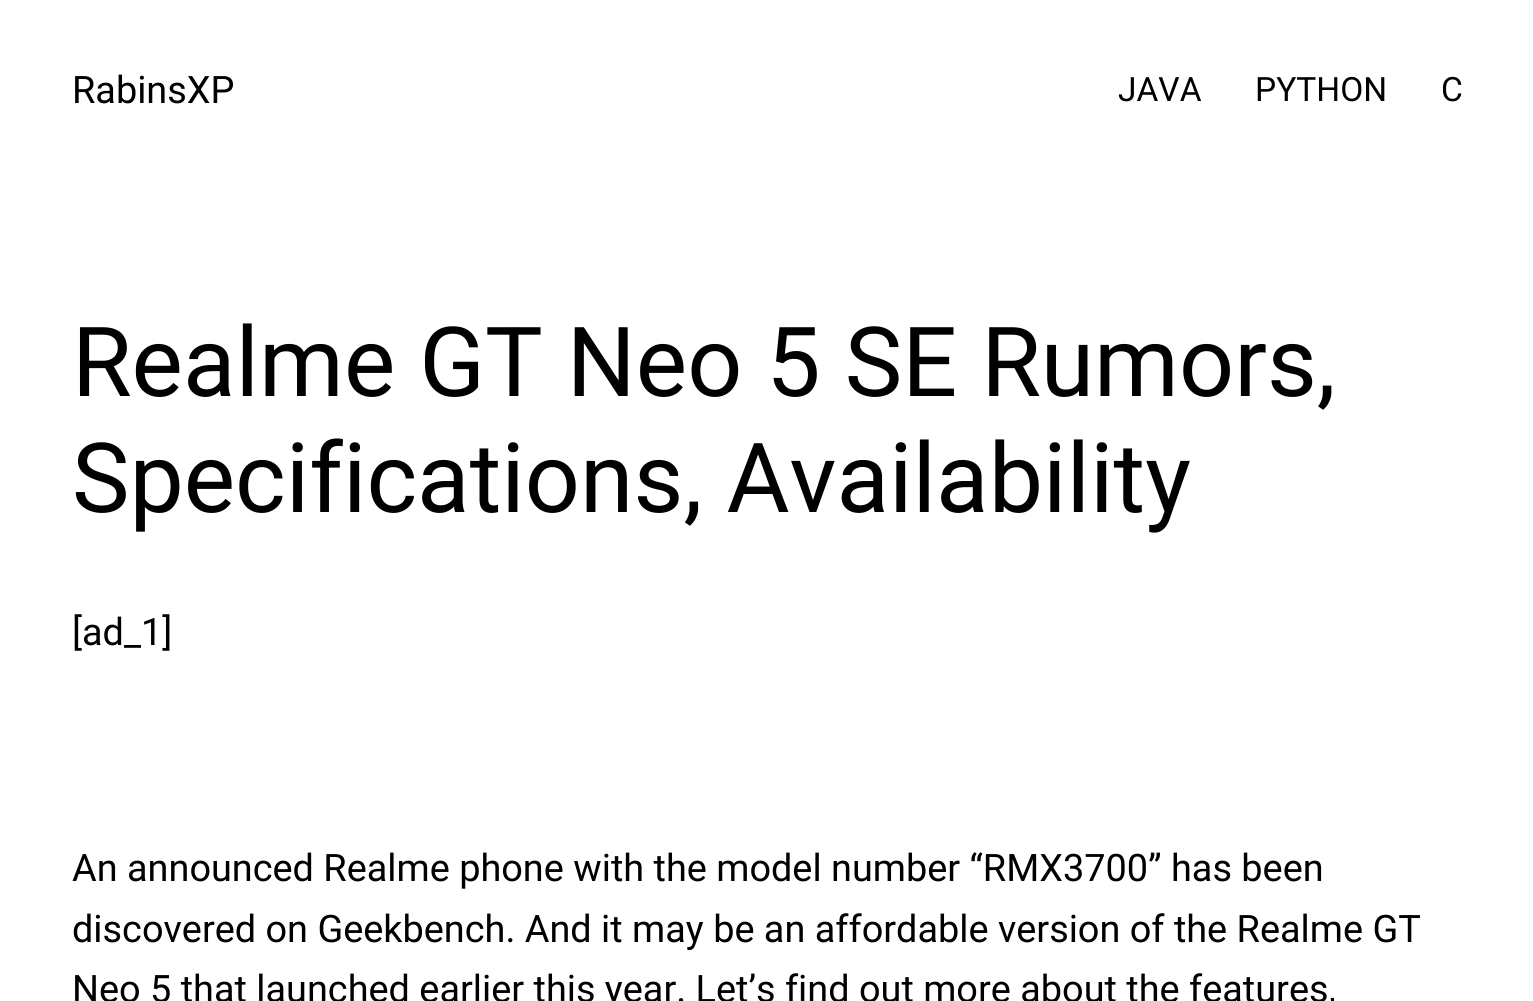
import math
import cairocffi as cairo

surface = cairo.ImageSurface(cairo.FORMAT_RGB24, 1533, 1001)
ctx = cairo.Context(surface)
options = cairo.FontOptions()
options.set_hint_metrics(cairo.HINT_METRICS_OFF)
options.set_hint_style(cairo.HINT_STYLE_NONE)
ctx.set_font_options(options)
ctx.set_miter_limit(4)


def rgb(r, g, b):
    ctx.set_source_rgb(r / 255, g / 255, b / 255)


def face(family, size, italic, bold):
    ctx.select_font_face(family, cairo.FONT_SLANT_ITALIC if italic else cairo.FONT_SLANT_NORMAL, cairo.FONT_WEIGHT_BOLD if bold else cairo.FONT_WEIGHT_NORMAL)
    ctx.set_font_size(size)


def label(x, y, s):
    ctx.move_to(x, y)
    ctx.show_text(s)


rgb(255, 255, 255)
ctx.paint()
face('Roboto', 37.85, 0, 0)
rgb(0, 0, 0)
label(72, 103, 'RabinsXP')
face('Roboto', 33.5, 0, 0)
label(1118, 101, 'JAVA')
label(1255, 101, 'PYTHON')
label(1441, 101, 'C')
face('Roboto', 96.75, 0, 0)
label(72, 396, 'Realme GT Neo 5 SE Rumors,')
label(72, 512, 'Specifications, Availability')
face('Roboto', 37.85, 0, 0)
label(72, 645, '[ad_1]')
label(72, 881, 'An announced Realme phone with the model number “RMX3700” has been')
label(72, 942, 'discovered on Geekbench. And it may be an affordable version of the Realme GT')
label(72, 1002, 'Neo 5 that launched earlier this year. Let’s find out more about the features,')
surface.write_to_png('render.png')
